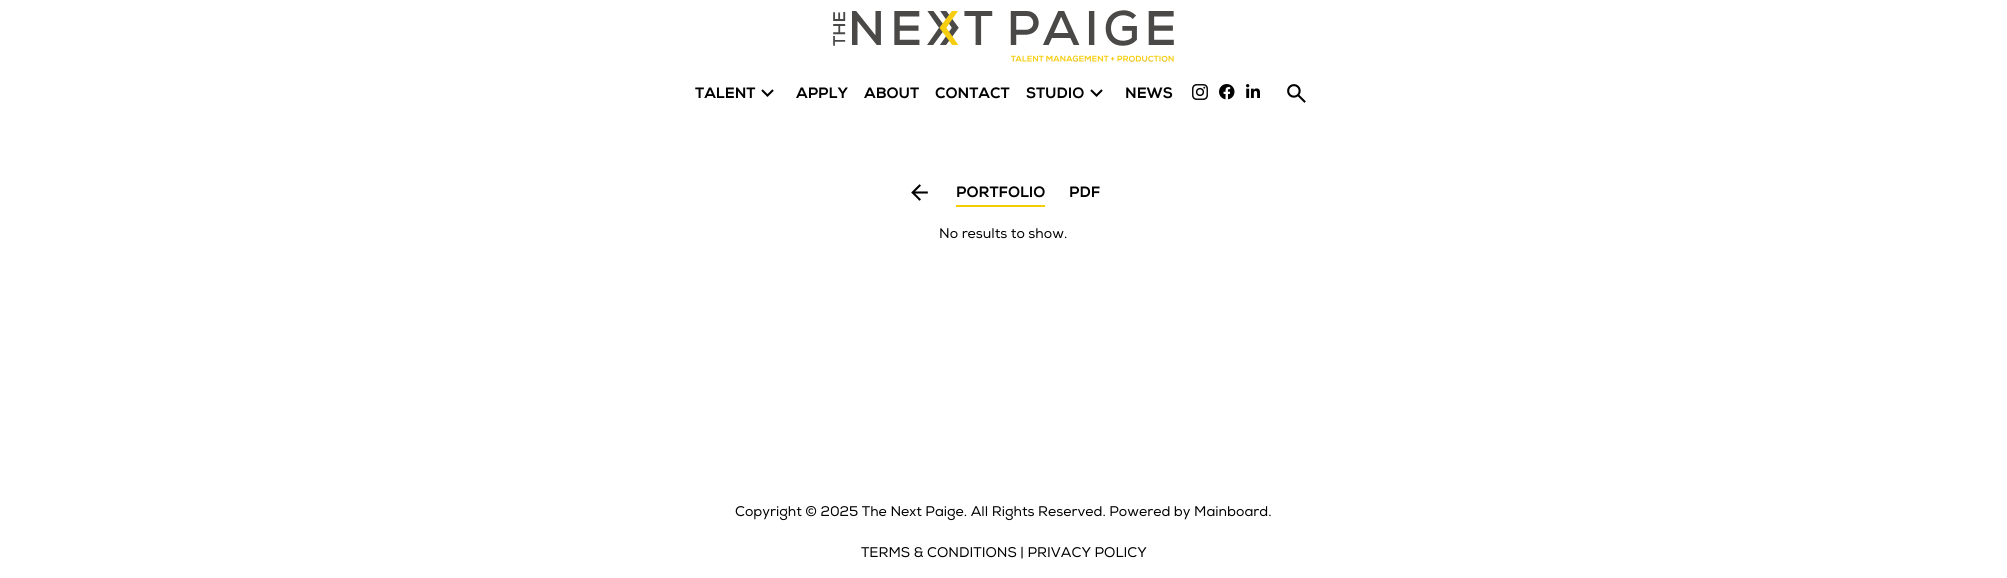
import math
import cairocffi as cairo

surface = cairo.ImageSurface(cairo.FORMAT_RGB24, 2007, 578)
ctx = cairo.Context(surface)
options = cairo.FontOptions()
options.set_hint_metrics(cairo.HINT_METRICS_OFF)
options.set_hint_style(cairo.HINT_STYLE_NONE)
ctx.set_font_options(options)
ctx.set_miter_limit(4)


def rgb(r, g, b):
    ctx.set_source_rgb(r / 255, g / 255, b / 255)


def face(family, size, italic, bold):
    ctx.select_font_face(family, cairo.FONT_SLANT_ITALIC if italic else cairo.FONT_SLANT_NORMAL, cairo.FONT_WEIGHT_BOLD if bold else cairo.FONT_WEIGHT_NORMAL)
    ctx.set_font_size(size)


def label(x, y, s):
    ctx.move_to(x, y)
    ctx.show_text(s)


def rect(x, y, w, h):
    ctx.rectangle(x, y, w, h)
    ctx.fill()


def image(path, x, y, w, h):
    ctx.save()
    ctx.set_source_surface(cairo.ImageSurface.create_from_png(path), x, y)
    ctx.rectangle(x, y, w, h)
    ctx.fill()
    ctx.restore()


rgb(255, 255, 255)
ctx.paint()
image('image0.png', 833, 10, 341, 52)
face('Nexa', 15, 0, 1)
rgb(0, 0, 0)
label(695, 98, 'TALENT')
image('image1.png', 761, 89, 13, 8)
label(796, 98, 'APPLY')
label(864, 98, 'ABOUT')
label(935, 98, 'CONTACT')
label(1026, 98, 'STUDIO')
image('image1.png', 1090, 89, 13, 8)
label(1125, 98, 'NEWS')
image('image2.png', 1192, 84, 16, 16)
image('image3.png', 1219, 84, 16, 16)
image('image4.png', 1246, 84, 14, 14)
image('image5.png', 1287, 84, 19, 19)
image('image6.png', 911, 184, 17, 17)
rgb(242, 205, 0)
rect(956, 205, 89, 2)
rgb(0, 0, 0)
label(956, 197, 'PORTFOLIO')
label(1069, 197, 'PDF')
face('Nexa', 14, 0, 0)
label(939, 238, 'No results to show.')
label(735, 516, 'Copyright © 2025 The Next Paige. All Rights Reserved. Powered by Mainboard.')
label(861, 557, 'TERMS & CONDITIONS | PRIVACY POLICY')
surface.write_to_png('render.png')
